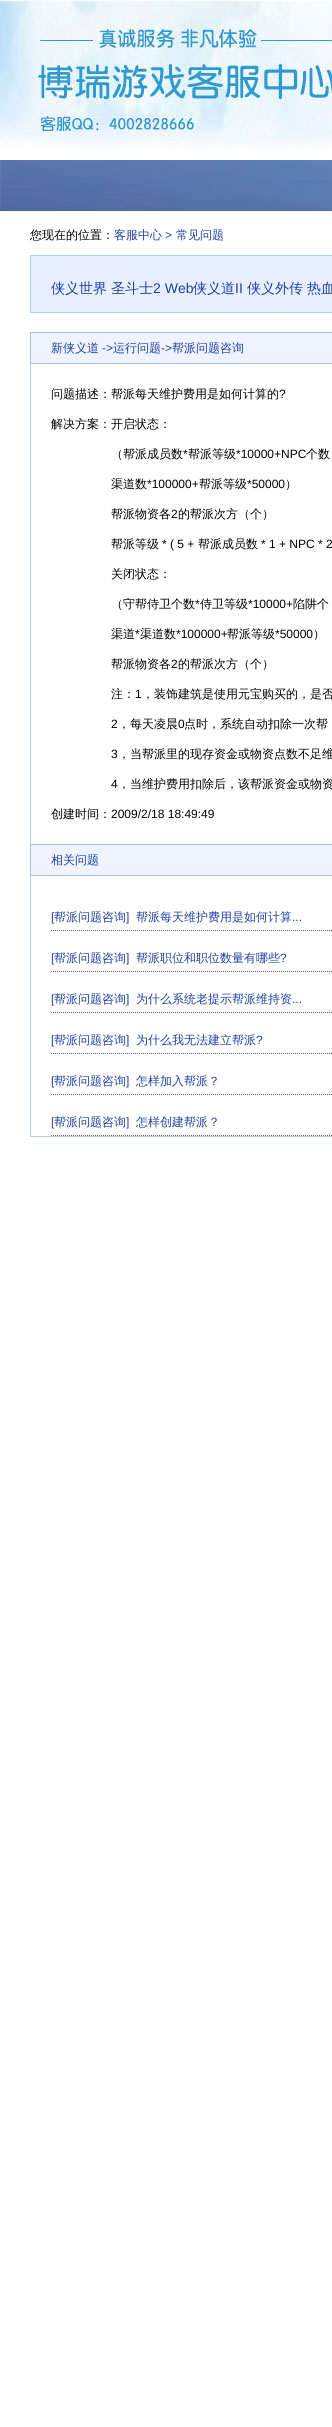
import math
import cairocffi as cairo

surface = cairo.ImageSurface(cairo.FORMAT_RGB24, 332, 2427)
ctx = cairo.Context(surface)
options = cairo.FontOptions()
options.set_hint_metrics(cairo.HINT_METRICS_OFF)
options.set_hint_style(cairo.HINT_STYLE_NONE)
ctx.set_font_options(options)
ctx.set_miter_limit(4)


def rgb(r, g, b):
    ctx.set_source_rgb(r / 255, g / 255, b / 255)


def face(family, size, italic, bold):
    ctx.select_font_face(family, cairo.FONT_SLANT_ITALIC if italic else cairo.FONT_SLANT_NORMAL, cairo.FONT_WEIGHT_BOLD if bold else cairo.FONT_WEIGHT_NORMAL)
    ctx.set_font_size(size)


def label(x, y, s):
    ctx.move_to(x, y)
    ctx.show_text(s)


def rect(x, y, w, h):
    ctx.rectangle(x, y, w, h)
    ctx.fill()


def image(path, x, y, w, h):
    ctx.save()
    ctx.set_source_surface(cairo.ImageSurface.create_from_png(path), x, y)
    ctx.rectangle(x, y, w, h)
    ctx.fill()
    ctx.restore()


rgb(255, 255, 255)
ctx.paint()
image('image0.png', 0, 0, 332, 149)
image('image1.png', 0, 160, 332, 51)
face('WenQuanYi Zen Hei Medium', 12, 0, 0)
rgb(0, 0, 0)
label(30, 239, '您现在的位置：')
rgb(30, 66, 160)
label(114, 239, '客服中心')
face('Liberation Sans', 12, 0, 0)
label(165, 239, '>')
face('WenQuanYi Zen Hei Medium', 12, 0, 0)
label(176, 239, '常见问题')
rgb(231, 239, 255)
ctx.rectangle(30.5, 255.5, 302, 57)
ctx.fill_preserve()
rgb(173, 207, 247)
ctx.set_line_width(1)
ctx.stroke()
face('WenQuanYi Zen Hei Medium', 14, 0, 0)
rgb(30, 66, 160)
label(51, 293, '侠义世界')
label(111, 293, '圣斗士')
face('Liberation Sans', 14, 0, 0)
label(153, 293, '2 Web')
face('WenQuanYi Zen Hei Medium', 14, 0, 0)
label(193, 293, '侠义道')
face('Liberation Sans', 14, 0, 0)
label(235, 293, 'II')
face('WenQuanYi Zen Hei Medium', 14, 0, 0)
label(247, 293, '侠义外传')
label(307, 293, '热血')
rgb(239, 243, 255)
ctx.rectangle(30.5, 332.5, 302, 31)
ctx.fill_preserve()
rgb(173, 199, 206)
ctx.stroke()
face('WenQuanYi Zen Hei Medium', 12, 0, 0)
rgb(30, 66, 160)
label(51, 352, '新侠义道')
face('Liberation Sans', 12, 0, 0)
rgb(24, 65, 165)
label(102, 352, '->')
face('WenQuanYi Zen Hei Medium', 12, 0, 0)
rgb(30, 66, 160)
label(113, 352, '运行问题')
face('Liberation Sans', 12, 0, 0)
rgb(24, 65, 165)
label(161, 352, '->')
face('WenQuanYi Zen Hei Medium', 12, 0, 0)
rgb(30, 66, 160)
label(172, 352, '帮派问题咨询')
rgb(173, 207, 247)
rect(30, 364, 1, 481)
rgb(0, 0, 0)
label(51, 398, '问题描述：帮派每天维护费用是如何计算的')
face('Liberation Sans', 12, 0, 0)
label(279, 398, '?')
face('WenQuanYi Zen Hei Medium', 12, 0, 0)
label(51, 428, '解决方案：开启状态：')
label(111, 458, '（帮派成员数')
face('Liberation Sans', 12, 0, 0)
label(183, 458, '*')
face('WenQuanYi Zen Hei Medium', 12, 0, 0)
label(188, 458, '帮派等级')
face('Liberation Sans', 12, 0, 0)
label(236, 458, '*10000+NPC')
face('WenQuanYi Zen Hei Medium', 12, 0, 0)
label(306, 458, '个数')
label(111, 488, '渠道数')
face('Liberation Sans', 12, 0, 0)
label(147, 488, '*100000+')
face('WenQuanYi Zen Hei Medium', 12, 0, 0)
label(199, 488, '帮派等级')
face('Liberation Sans', 12, 0, 0)
label(247, 488, '*50000')
face('WenQuanYi Zen Hei Medium', 12, 0, 0)
label(285, 488, '）')
label(111, 518, '帮派物资各')
face('Liberation Sans', 12, 0, 0)
label(171, 518, '2')
face('WenQuanYi Zen Hei Medium', 12, 0, 0)
label(178, 518, '的帮派次方（个）')
label(111, 548, '帮派等级')
face('Liberation Sans', 12, 0, 0)
label(162, 548, '* ( 5 +')
face('WenQuanYi Zen Hei Medium', 12, 0, 0)
label(198, 548, '帮派成员数')
face('Liberation Sans', 12, 0, 0)
label(261, 548, '* 1 + NPC * 2')
face('WenQuanYi Zen Hei Medium', 12, 0, 0)
label(111, 578, '关闭状态：')
label(111, 608, '（守帮侍卫个数')
face('Liberation Sans', 12, 0, 0)
label(195, 608, '*')
face('WenQuanYi Zen Hei Medium', 12, 0, 0)
label(200, 608, '侍卫等级')
face('Liberation Sans', 12, 0, 0)
label(248, 608, '*10000+')
face('WenQuanYi Zen Hei Medium', 12, 0, 0)
label(293, 608, '陷阱个')
label(111, 638, '渠道')
face('Liberation Sans', 12, 0, 0)
label(135, 638, '*')
face('WenQuanYi Zen Hei Medium', 12, 0, 0)
label(140, 638, '渠道数')
face('Liberation Sans', 12, 0, 0)
label(176, 638, '*100000+')
face('WenQuanYi Zen Hei Medium', 12, 0, 0)
label(227, 638, '帮派等级')
face('Liberation Sans', 12, 0, 0)
label(275, 638, '*50000')
face('WenQuanYi Zen Hei Medium', 12, 0, 0)
label(313, 638, '）')
label(111, 668, '帮派物资各')
face('Liberation Sans', 12, 0, 0)
label(171, 668, '2')
face('WenQuanYi Zen Hei Medium', 12, 0, 0)
label(178, 668, '的帮派次方（个）')
label(111, 698, '注：')
face('Liberation Sans', 12, 0, 0)
label(135, 698, '1')
face('WenQuanYi Zen Hei Medium', 12, 0, 0)
label(142, 698, '，装饰建筑是使用元宝购买的，是否')
face('Liberation Sans', 12, 0, 0)
label(111, 728, '2')
face('WenQuanYi Zen Hei Medium', 12, 0, 0)
label(118, 728, '，每天凌晨')
face('Liberation Sans', 12, 0, 0)
label(178, 728, '0')
face('WenQuanYi Zen Hei Medium', 12, 0, 0)
label(184, 728, '点时，系统自动扣除一次帮')
face('Liberation Sans', 12, 0, 0)
label(111, 758, '3')
face('WenQuanYi Zen Hei Medium', 12, 0, 0)
label(118, 758, '，当帮派里的现存资金或物资点数不足维')
face('Liberation Sans', 12, 0, 0)
label(111, 788, '4')
face('WenQuanYi Zen Hei Medium', 12, 0, 0)
label(118, 788, '，当维护费用扣除后，该帮派资金或物资')
label(51, 818, '创建时间：')
face('Liberation Sans', 12, 0, 0)
label(111, 818, '2009/2/18 18:49:49')
rgb(239, 243, 255)
ctx.rectangle(30.5, 844.5, 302, 31)
ctx.fill_preserve()
rgb(173, 199, 206)
ctx.stroke()
face('WenQuanYi Zen Hei Medium', 12, 0, 0)
rgb(24, 65, 165)
label(51, 864, '相关问题')
rgb(173, 207, 247)
rect(30, 1136, 302, 1)
rect(30, 876, 1, 261)
ctx.new_path()
ctx.move_to(51, 930.5)
ctx.line_to(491, 930.5)
rgb(99, 97, 99)
ctx.set_dash([1, 1])
ctx.stroke()
face('Liberation Sans', 12, 0, 0)
rgb(30, 66, 160)
label(51, 921, '[')
face('WenQuanYi Zen Hei Medium', 12, 0, 0)
label(54, 921, '帮派问题咨询')
face('Liberation Sans', 12, 0, 0)
label(126, 921, ']')
face('WenQuanYi Zen Hei Medium', 12, 0, 0)
label(136, 921, '帮派每天维护费用是如何计算')
face('Liberation Sans', 12, 0, 0)
label(292, 921, '...')
ctx.new_path()
ctx.move_to(51, 971.5)
ctx.line_to(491, 971.5)
rgb(99, 97, 99)
ctx.stroke()
rgb(30, 66, 160)
label(51, 962, '[')
face('WenQuanYi Zen Hei Medium', 12, 0, 0)
label(54, 962, '帮派问题咨询')
face('Liberation Sans', 12, 0, 0)
label(126, 962, ']')
face('WenQuanYi Zen Hei Medium', 12, 0, 0)
label(136, 962, '帮派职位和职位数量有哪些')
face('Liberation Sans', 12, 0, 0)
label(280, 962, '?')
ctx.new_path()
ctx.move_to(51, 1012.5)
ctx.line_to(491, 1012.5)
rgb(99, 97, 99)
ctx.stroke()
rgb(30, 66, 160)
label(51, 1003, '[')
face('WenQuanYi Zen Hei Medium', 12, 0, 0)
label(54, 1003, '帮派问题咨询')
face('Liberation Sans', 12, 0, 0)
label(126, 1003, ']')
face('WenQuanYi Zen Hei Medium', 12, 0, 0)
label(136, 1003, '为什么系统老提示帮派维持资')
face('Liberation Sans', 12, 0, 0)
label(292, 1003, '...')
ctx.new_path()
ctx.move_to(51, 1053.5)
ctx.line_to(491, 1053.5)
rgb(99, 97, 99)
ctx.stroke()
rgb(30, 66, 160)
label(51, 1044, '[')
face('WenQuanYi Zen Hei Medium', 12, 0, 0)
label(54, 1044, '帮派问题咨询')
face('Liberation Sans', 12, 0, 0)
label(126, 1044, ']')
face('WenQuanYi Zen Hei Medium', 12, 0, 0)
label(136, 1044, '为什么我无法建立帮派')
face('Liberation Sans', 12, 0, 0)
label(256, 1044, '?')
ctx.new_path()
ctx.move_to(51, 1094.5)
ctx.line_to(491, 1094.5)
rgb(99, 97, 99)
ctx.stroke()
rgb(30, 66, 160)
label(51, 1085, '[')
face('WenQuanYi Zen Hei Medium', 12, 0, 0)
label(54, 1085, '帮派问题咨询')
face('Liberation Sans', 12, 0, 0)
label(126, 1085, ']')
face('WenQuanYi Zen Hei Medium', 12, 0, 0)
label(136, 1085, '怎样加入帮派？')
ctx.new_path()
ctx.move_to(51, 1135.5)
ctx.line_to(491, 1135.5)
rgb(99, 97, 99)
ctx.stroke()
face('Liberation Sans', 12, 0, 0)
rgb(30, 66, 160)
label(51, 1126, '[')
face('WenQuanYi Zen Hei Medium', 12, 0, 0)
label(54, 1126, '帮派问题咨询')
face('Liberation Sans', 12, 0, 0)
label(126, 1126, ']')
face('WenQuanYi Zen Hei Medium', 12, 0, 0)
label(136, 1126, '怎样创建帮派？')
surface.write_to_png('render.png')
